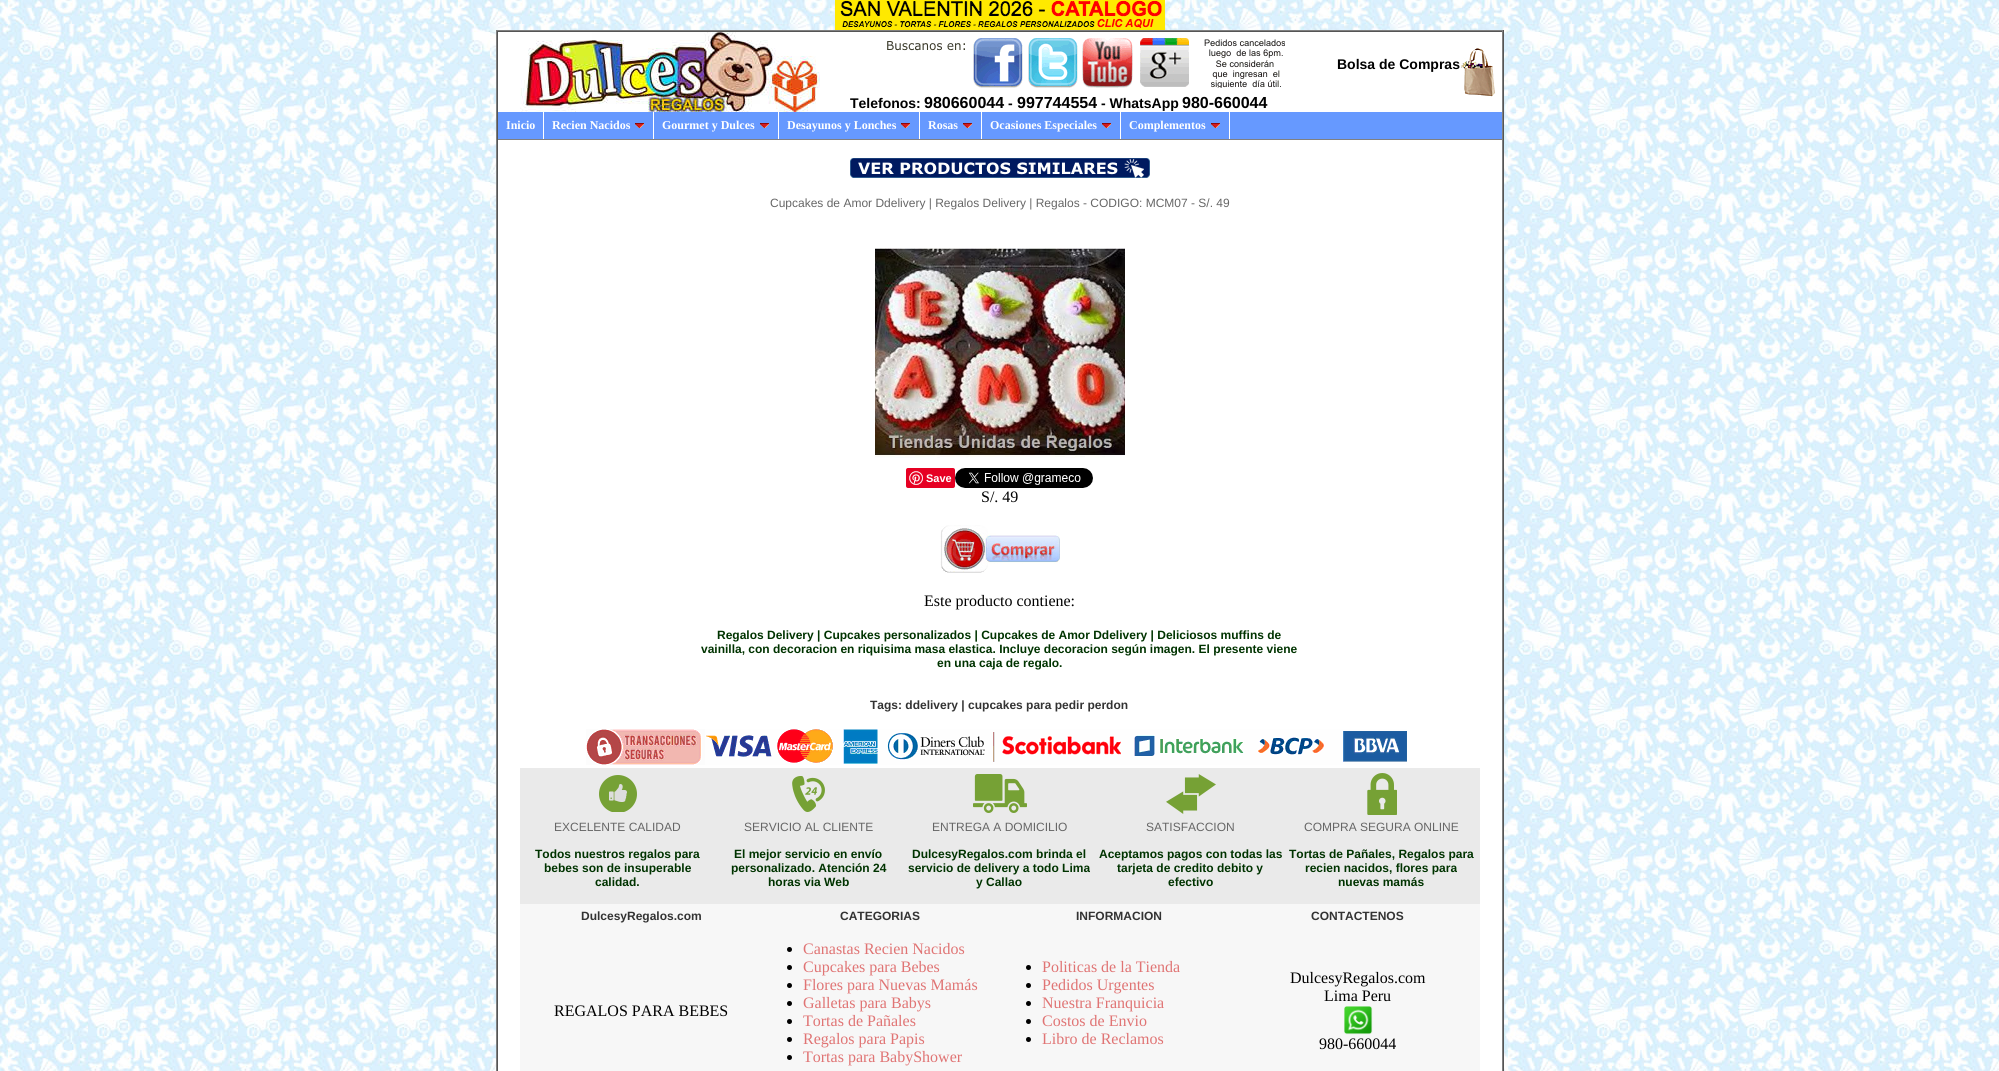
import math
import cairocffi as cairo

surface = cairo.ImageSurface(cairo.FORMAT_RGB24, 1999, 1071)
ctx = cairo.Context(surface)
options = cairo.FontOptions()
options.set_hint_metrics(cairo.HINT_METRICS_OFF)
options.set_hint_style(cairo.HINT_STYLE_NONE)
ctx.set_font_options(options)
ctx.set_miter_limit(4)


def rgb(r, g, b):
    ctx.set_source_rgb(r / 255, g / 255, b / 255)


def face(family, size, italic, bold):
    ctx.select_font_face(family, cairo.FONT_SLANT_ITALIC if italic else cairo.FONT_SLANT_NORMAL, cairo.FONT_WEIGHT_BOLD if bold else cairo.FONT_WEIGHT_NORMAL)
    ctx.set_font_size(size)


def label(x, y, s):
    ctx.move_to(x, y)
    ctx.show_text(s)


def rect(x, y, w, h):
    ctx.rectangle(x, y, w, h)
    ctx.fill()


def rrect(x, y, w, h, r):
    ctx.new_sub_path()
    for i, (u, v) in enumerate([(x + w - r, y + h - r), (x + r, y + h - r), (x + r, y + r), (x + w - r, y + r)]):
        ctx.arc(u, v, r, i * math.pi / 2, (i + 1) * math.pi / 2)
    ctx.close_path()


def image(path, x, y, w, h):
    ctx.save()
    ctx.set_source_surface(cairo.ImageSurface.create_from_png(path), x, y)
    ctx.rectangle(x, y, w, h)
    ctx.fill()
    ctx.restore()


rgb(255, 255, 255)
ctx.paint()
image('image0.png', 0, 0, 1999, 1071)
image('image1.png', 835, 0, 330, 30)
rgb(128, 128, 128)
rect(496, 30, 1008, 1)
rgb(85, 85, 85)
rect(1503, 30, 1, 1041)
rgb(128, 128, 128)
rect(496, 30, 1, 1041)
rgb(85, 85, 85)
rect(497, 31, 1006, 1)
rgb(128, 128, 128)
rect(1502, 31, 1, 1040)
rgb(85, 85, 85)
rect(497, 31, 1, 1040)
rgb(255, 255, 255)
rect(498, 32, 1004, 80)
image('image2.png', 520, 32, 300, 80)
image('image3.png', 887, 38, 398, 50)
image('image4.png', 1461, 48, 34, 49)
face('Liberation Sans', 14, 0, 1)
rgb(0, 0, 0)
label(1337, 69, 'Bolsa de Compras')
label(850, 108, 'Telefonos:')
face('Liberation Sans', 16, 0, 1)
label(924, 108, '980660044')
face('Liberation Sans', 14, 0, 1)
label(1008, 108, '-')
face('Liberation Sans', 16, 0, 1)
label(1017, 108, '997744554')
face('Liberation Sans', 14, 0, 1)
label(1101, 108, '- WhatsApp')
face('Liberation Sans', 16, 0, 1)
label(1182, 108, '980-660044')
rgb(102, 153, 255)
rect(498, 112, 1004, 27)
rgb(128, 128, 128)
rect(498, 139, 1004, 1)
rgb(255, 255, 255)
rect(543, 112, 1, 27)
face('Liberation Serif', 12, 0, 1)
label(506, 129, 'Inicio')
rect(653, 112, 1, 27)
label(552, 129, 'Recien Nacidos')
image('image5.png', 635, 123, 9, 5)
rect(778, 112, 1, 27)
label(662, 129, 'Gourmet y Dulces')
image('image5.png', 760, 123, 9, 5)
rect(919, 112, 1, 27)
label(787, 129, 'Desayunos y Lonches')
image('image5.png', 901, 123, 9, 5)
rect(981, 112, 1, 27)
label(928, 129, 'Rosas')
image('image5.png', 963, 123, 9, 5)
rect(1120, 112, 1, 27)
label(990, 129, 'Ocasiones Especiales')
image('image5.png', 1102, 123, 9, 5)
rect(1229, 112, 1, 27)
label(1129, 129, 'Complementos')
image('image5.png', 1211, 123, 9, 5)
rect(498, 140, 1004, 931)
image('image6.png', 850, 158, 300, 20)
face('Liberation Sans', 12, 0, 0)
rgb(102, 102, 102)
label(770, 207, 'Cupcakes de Amor Ddelivery | Regalos Delivery | Regalos - CODIGO: MCM07 - S/. 49')
image('image7.png', 875, 248, 250, 210)
rgb(230, 0, 35)
rrect(906, 468, 49, 20, 2)
ctx.fill()
image('image8.png', 909, 471, 14, 14)
face('Liberation Sans', 11, 0, 1)
rgb(255, 255, 255)
label(926, 482, 'Save')
image('image9.png', 955, 468, 138, 20)
face('Liberation Serif', 16, 0, 0)
rgb(0, 0, 0)
label(981, 502, 'S/. 49')
image('image10.png', 940, 525, 120, 48)
label(924, 606, 'Este producto contiene:')
face('Liberation Sans', 12, 0, 1)
rgb(0, 51, 0)
label(717, 639, 'Regalos Delivery | Cupcakes personalizados | Cupcakes de Amor Ddelivery | Deliciosos muffins de')
label(701, 653, 'vainilla, con decoracion en riquisima masa elastica. Incluye decoracion según imagen. El presente viene')
label(937, 667, 'en una caja de regalo.')
rgb(51, 51, 51)
label(870, 709, 'Tags: ddelivery | cupcakes para pedir perdon')
image('image11.png', 586, 729, 821, 36)
rgb(234, 234, 234)
rect(520, 768, 960, 136)
image('image12.png', 599, 775, 38, 37)
image('image13.png', 792, 776, 33, 36)
image('image14.png', 973, 774, 54, 39)
image('image15.png', 1166, 774, 50, 40)
image('image16.png', 1367, 773, 30, 42)
face('Liberation Sans', 12, 0, 0)
rgb(102, 102, 102)
label(554, 831, 'EXCELENTE CALIDAD')
label(744, 831, 'SERVICIO AL CLIENTE')
label(932, 831, 'ENTREGA A DOMICILIO')
label(1146, 831, 'SATISFACCION')
label(1304, 831, 'COMPRA SEGURA ONLINE')
face('Liberation Sans', 12, 0, 1)
rgb(0, 51, 0)
label(535, 858, 'Todos nuestros regalos para')
label(544, 872, 'bebes son de insuperable')
label(595, 886, 'calidad.')
label(734, 858, 'El mejor servicio en envío')
label(731, 872, 'personalizado. Atención 24')
label(768, 886, 'horas via Web')
label(912, 858, 'DulcesyRegalos.com brinda el')
label(908, 872, 'servicio de delivery a todo Lima')
label(976, 886, 'y Callao')
label(1099, 858, 'Aceptamos pagos con todas las')
label(1117, 872, 'tarjeta de credito debito y')
label(1168, 886, 'efectivo')
label(1289, 858, 'Tortas de Pañales, Regalos para')
label(1305, 872, 'recien nacidos, flores para')
label(1338, 886, 'nuevas mamás')
rgb(247, 247, 247)
rect(520, 904, 960, 167)
rgb(51, 51, 51)
label(581, 920, 'DulcesyRegalos.com')
label(840, 920, 'CATEGORIAS')
label(1076, 920, 'INFORMACION')
label(1311, 920, 'CONTACTENOS')
face('Liberation Serif', 16, 0, 0)
rgb(0, 0, 0)
label(554, 1016, 'REGALOS PARA BEBES')
ctx.new_path()
ctx.arc(789.5, 949.5, 2.5, 0, 2 * math.pi)
ctx.fill()
rgb(224, 116, 116)
label(803, 954, 'Canastas Recien Nacidos')
rgb(0, 0, 0)
ctx.new_path()
ctx.arc(789.5, 967.5, 2.5, 0, 2 * math.pi)
ctx.fill()
rgb(224, 116, 116)
label(803, 972, 'Cupcakes para Bebes')
rgb(0, 0, 0)
ctx.new_path()
ctx.arc(789.5, 985.5, 2.5, 0, 2 * math.pi)
ctx.fill()
rgb(224, 116, 116)
label(803, 990, 'Flores para Nuevas Mamás')
rgb(0, 0, 0)
ctx.new_path()
ctx.arc(789.5, 1003.5, 2.5, 0, 2 * math.pi)
ctx.fill()
rgb(224, 116, 116)
label(803, 1008, 'Galletas para Babys')
rgb(0, 0, 0)
ctx.new_path()
ctx.arc(789.5, 1021.5, 2.5, 0, 2 * math.pi)
ctx.fill()
rgb(224, 116, 116)
label(803, 1026, 'Tortas de Pañales')
rgb(0, 0, 0)
ctx.new_path()
ctx.arc(789.5, 1039.5, 2.5, 0, 2 * math.pi)
ctx.fill()
rgb(224, 116, 116)
label(803, 1044, 'Regalos para Papis')
rgb(0, 0, 0)
ctx.new_path()
ctx.arc(789.5, 1057.5, 2.5, 0, 2 * math.pi)
ctx.fill()
rgb(224, 116, 116)
label(803, 1062, 'Tortas para BabyShower')
rgb(0, 0, 0)
ctx.new_path()
ctx.arc(1028.5, 967.5, 2.5, 0, 2 * math.pi)
ctx.fill()
rgb(224, 116, 116)
label(1042, 972, 'Politicas de la Tienda')
rgb(0, 0, 0)
ctx.new_path()
ctx.arc(1028.5, 985.5, 2.5, 0, 2 * math.pi)
ctx.fill()
rgb(224, 116, 116)
label(1042, 990, 'Pedidos Urgentes')
rgb(0, 0, 0)
ctx.new_path()
ctx.arc(1028.5, 1003.5, 2.5, 0, 2 * math.pi)
ctx.fill()
rgb(224, 116, 116)
label(1042, 1008, 'Nuestra Franquicia')
rgb(0, 0, 0)
ctx.new_path()
ctx.arc(1028.5, 1021.5, 2.5, 0, 2 * math.pi)
ctx.fill()
rgb(224, 116, 116)
label(1042, 1026, 'Costos de Envio')
rgb(0, 0, 0)
ctx.new_path()
ctx.arc(1028.5, 1039.5, 2.5, 0, 2 * math.pi)
ctx.fill()
rgb(224, 116, 116)
label(1042, 1044, 'Libro de Reclamos')
rgb(0, 0, 0)
label(1290, 983, 'DulcesyRegalos.com')
label(1324, 1001, 'Lima Peru')
image('image17.png', 1344, 1006, 29, 29)
label(1319, 1049, '980-660044')
surface.write_to_png('render.png')
